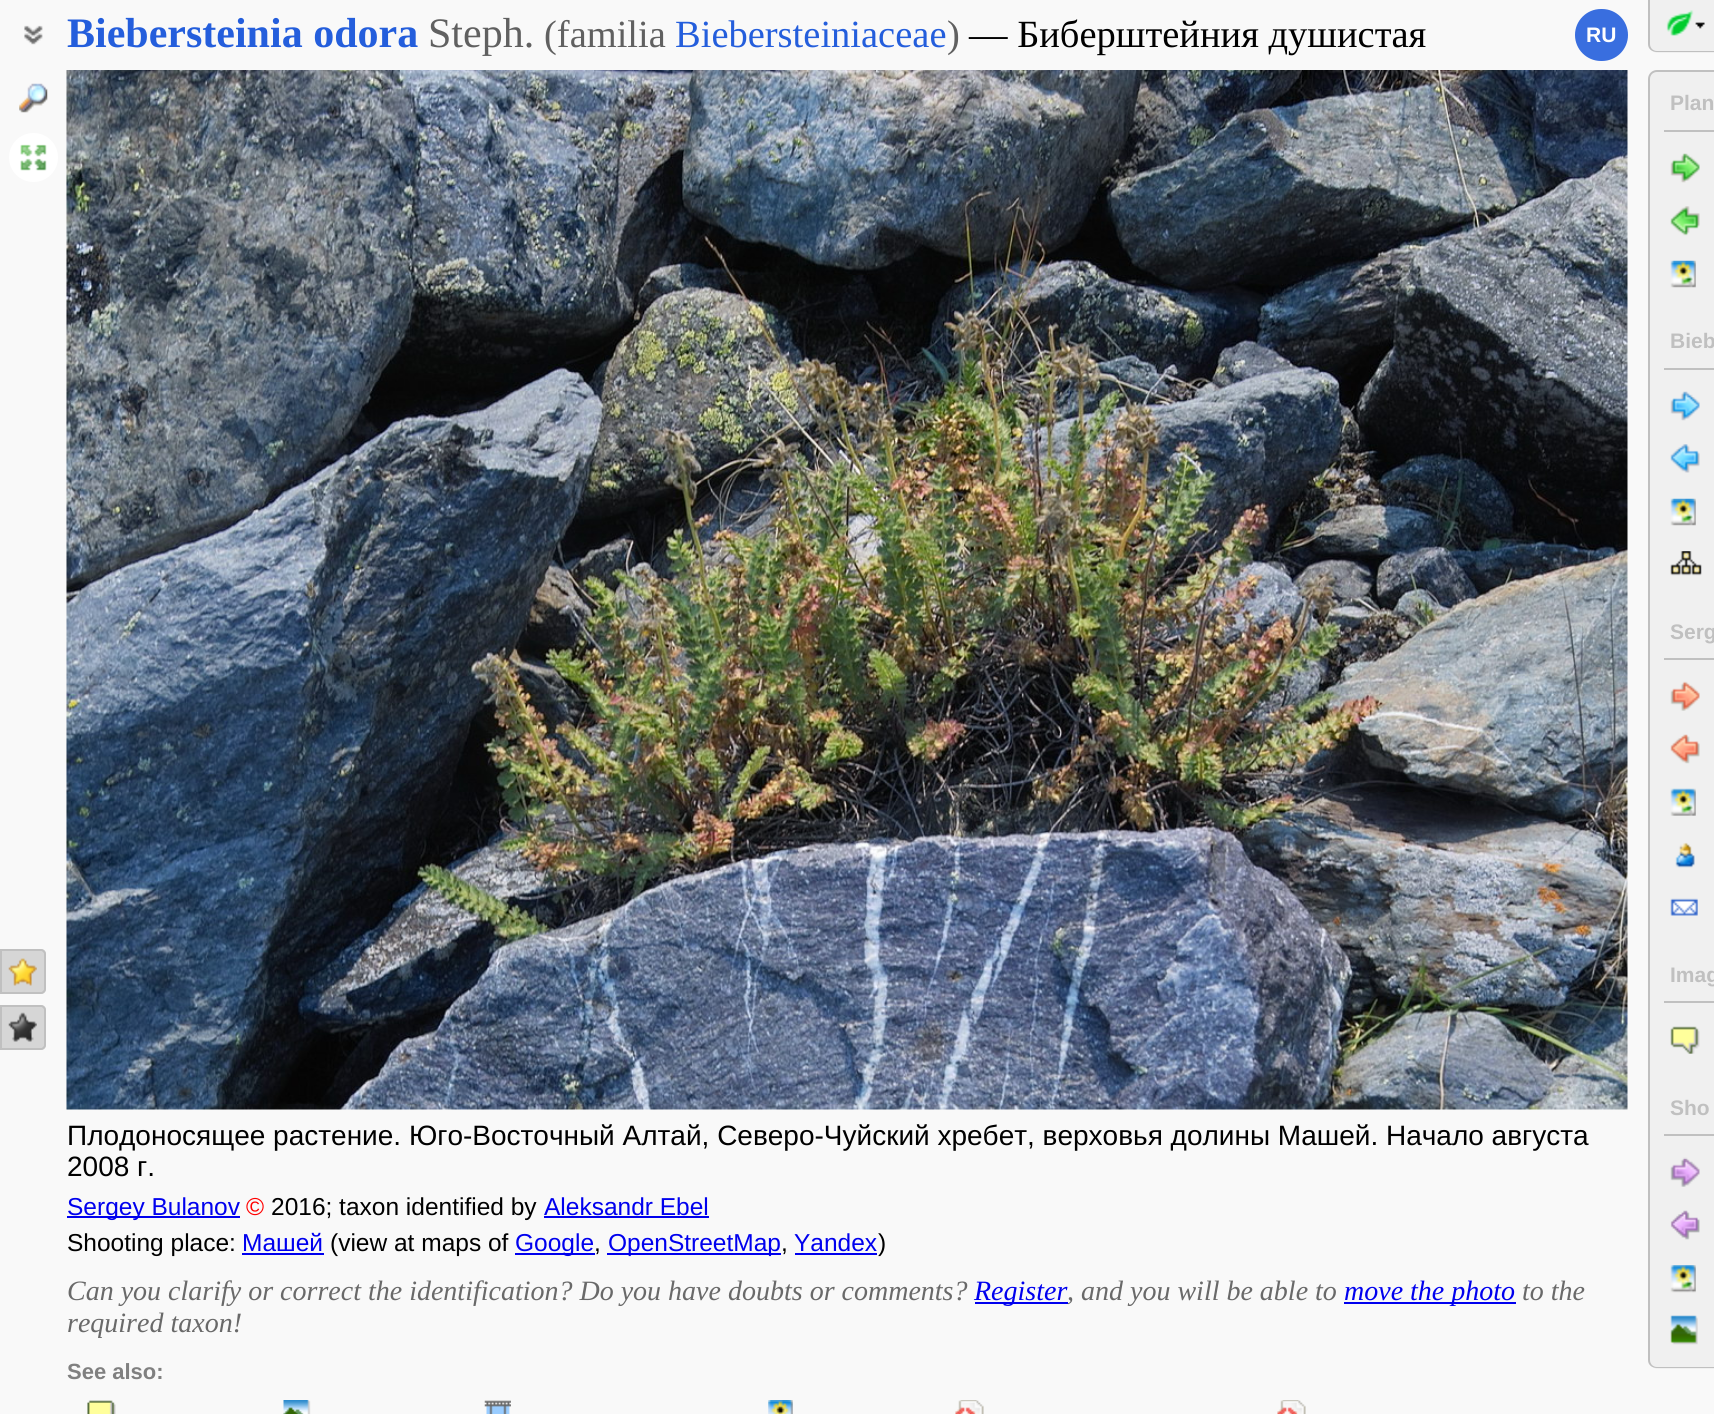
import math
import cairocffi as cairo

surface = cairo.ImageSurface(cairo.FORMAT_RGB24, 1714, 1414)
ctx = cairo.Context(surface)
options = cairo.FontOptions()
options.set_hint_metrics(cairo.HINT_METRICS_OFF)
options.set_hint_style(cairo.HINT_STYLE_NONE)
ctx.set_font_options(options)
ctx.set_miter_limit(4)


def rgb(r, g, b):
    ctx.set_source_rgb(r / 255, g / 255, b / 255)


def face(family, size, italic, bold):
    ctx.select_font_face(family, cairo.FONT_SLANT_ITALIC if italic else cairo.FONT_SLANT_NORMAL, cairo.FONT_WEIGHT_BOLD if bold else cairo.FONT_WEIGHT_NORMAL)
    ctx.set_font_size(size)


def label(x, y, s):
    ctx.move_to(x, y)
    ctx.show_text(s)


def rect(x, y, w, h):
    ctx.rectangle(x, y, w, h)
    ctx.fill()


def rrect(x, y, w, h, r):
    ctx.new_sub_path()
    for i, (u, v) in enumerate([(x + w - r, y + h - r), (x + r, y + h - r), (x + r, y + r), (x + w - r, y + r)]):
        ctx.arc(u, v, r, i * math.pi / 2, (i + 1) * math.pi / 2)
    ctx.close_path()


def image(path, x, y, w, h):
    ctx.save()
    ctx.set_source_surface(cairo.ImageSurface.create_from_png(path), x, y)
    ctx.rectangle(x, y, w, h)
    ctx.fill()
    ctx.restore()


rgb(249, 249, 249)
ctx.paint()
image('image0.png', 24, 25, 19, 20)
face('Liberation Serif', 42, 0, 1)
rgb(36, 94, 220)
label(67, 47, 'Biebersteinia odora')
face('Liberation Serif', 42, 0, 0)
rgb(96, 96, 96)
label(428, 47, 'Steph.')
face('Liberation Serif', 38.5, 0, 0)
label(544, 47, '(familia')
rgb(36, 94, 220)
label(675, 47, 'Biebersteiniaceae')
rgb(96, 96, 96)
label(947, 47, ')')
rgb(0, 0, 0)
label(969, 47, '— Биберштейния душистая')
rgb(57, 110, 223)
rrect(1575, 9, 53, 52, 26)
ctx.fill()
face('Liberation Sans', 21, 0, 1)
rgb(254, 254, 254)
label(1586, 42, 'RU')
image('image1.png', 19, 83, 29, 30)
rgb(255, 255, 255)
ctx.arc(33.5, 157.5, 24.5, 0, 2 * math.pi)
ctx.fill()
image('image2.png', 20, 144, 27, 27)
rgb(214, 214, 214)
ctx.new_path()
ctx.move_to(0, 949)
ctx.line_to(41, 949)
ctx.curve_to(44, 949, 46, 951, 46, 954)
ctx.line_to(46, 989)
ctx.curve_to(46, 992, 44, 994, 41, 994)
ctx.line_to(0, 994)
ctx.close_path()
ctx.fill()
image('image3.png', 8, 958, 29, 28)
ctx.new_path()
ctx.move_to(1, 950)
ctx.line_to(41, 950)
ctx.curve_to(43, 950, 45, 952, 45, 954)
ctx.line_to(45, 989)
ctx.curve_to(45, 991, 43, 993, 41, 993)
ctx.line_to(1, 993)
ctx.close_path()
rgb(192, 192, 192)
ctx.stroke()
rgb(214, 214, 214)
ctx.new_path()
ctx.move_to(0, 1005)
ctx.line_to(41, 1005)
ctx.curve_to(44, 1005, 46, 1007, 46, 1010)
ctx.line_to(46, 1045)
ctx.curve_to(46, 1048, 44, 1050, 41, 1050)
ctx.line_to(0, 1050)
ctx.close_path()
ctx.fill()
image('image4.png', 8, 1012, 29, 30)
ctx.new_path()
ctx.move_to(1, 1006)
ctx.line_to(41, 1006)
ctx.curve_to(43, 1006, 45, 1008, 45, 1010)
ctx.line_to(45, 1045)
ctx.curve_to(45, 1047, 43, 1049, 41, 1049)
ctx.line_to(1, 1049)
ctx.close_path()
rgb(192, 192, 192)
ctx.stroke()
rgb(240, 240, 240)
ctx.new_path()
ctx.move_to(1649, 0)
ctx.line_to(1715, 0)
ctx.line_to(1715, 53)
ctx.line_to(1658, 53)
ctx.curve_to(1653, 53, 1649, 49, 1649, 44)
ctx.close_path()
ctx.fill()
image('image5.png', 1666, 10, 28, 26)
rgb(192, 192, 192)
ctx.set_fill_rule(cairo.FILL_RULE_EVEN_ODD)
ctx.new_path()
ctx.move_to(1648, 0)
ctx.line_to(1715, 0)
ctx.line_to(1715, 52)
ctx.line_to(1657, 52)
ctx.curve_to(1652, 52, 1648, 49, 1648, 44)
ctx.close_path()
ctx.move_to(1650, 0)
ctx.line_to(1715, 0)
ctx.line_to(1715, 51)
ctx.line_to(1657, 51)
ctx.curve_to(1653, 51, 1650, 48, 1650, 44)
ctx.close_path()
ctx.fill()
image('image6.png', 1695, 22, 10, 7)
rgb(240, 240, 240)
ctx.new_path()
ctx.move_to(1658, 70)
ctx.line_to(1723, 70)
ctx.line_to(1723, 1369)
ctx.line_to(1658, 1369)
ctx.curve_to(1653, 1369, 1649, 1365, 1649, 1360)
ctx.line_to(1649, 79)
ctx.curve_to(1649, 74, 1653, 70, 1658, 70)
ctx.close_path()
ctx.fill()
rgb(192, 192, 192)
ctx.new_path()
ctx.move_to(1657, 70)
ctx.line_to(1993, 70)
ctx.line_to(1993, 1368)
ctx.line_to(1657, 1368)
ctx.curve_to(1652, 1368, 1648, 1365, 1648, 1360)
ctx.line_to(1648, 79)
ctx.curve_to(1648, 74, 1652, 70, 1657, 70)
ctx.close_path()
ctx.move_to(1657, 72)
ctx.line_to(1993, 72)
ctx.line_to(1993, 1367)
ctx.line_to(1657, 1367)
ctx.curve_to(1653, 1367, 1650, 1364, 1650, 1360)
ctx.line_to(1650, 79)
ctx.curve_to(1650, 75, 1653, 72, 1657, 72)
ctx.close_path()
ctx.fill()
rect(1664, 130, 50, 2)
label(1670, 110, 'Plan')
image('image7.png', 1670, 153, 30, 30)
image('image8.png', 1670, 206, 30, 30)
image('image9.png', 1670, 260, 26, 28)
rect(1664, 368, 50, 2)
label(1670, 348, 'Bieb')
image('image10.png', 1670, 391, 30, 30)
image('image11.png', 1670, 444, 30, 29)
image('image9.png', 1670, 498, 26, 28)
image('image12.png', 1670, 551, 32, 25)
rect(1664, 658, 50, 2)
label(1670, 639, 'Serg')
image('image13.png', 1670, 681, 30, 30)
image('image14.png', 1670, 734, 30, 30)
image('image15.png', 1670, 788, 26, 28)
image('image16.png', 1675, 842, 20, 26)
image('image17.png', 1670, 898, 28, 18)
rect(1664, 1001, 50, 2)
label(1670, 982, 'Imag')
image('image18.png', 1670, 1026, 30, 28)
rect(1664, 1134, 50, 2)
label(1670, 1115, 'Sho')
image('image19.png', 1670, 1157, 30, 30)
image('image20.png', 1670, 1210, 30, 30)
image('image21.png', 1670, 1265, 26, 28)
image('image22.png', 1670, 1315, 28, 30)
image('image23.png', 66, 70, 1562, 1040)
face('Liberation Sans', 28, 0, 0)
rgb(0, 0, 0)
label(67, 1145, 'Плодоносящее растение. Юго-Восточный Алтай, Северо-Чуйский хребет, верховья долины Машей. Начало августа')
label(67, 1176, '2008 г.')
rgb(0, 0, 238)
rect(67, 1216, 173, 2)
face('Liberation Sans', 24.5, 0, 0)
label(67, 1215, 'Sergey Bulanov')
rgb(255, 0, 0)
label(246, 1215, '©')
rgb(0, 0, 0)
label(271, 1215, '2016; taxon identified by')
rgb(0, 0, 238)
label(544, 1215, 'Aleksandr Ebel')
rect(544, 1216, 165, 2)
rgb(0, 0, 0)
label(67, 1251, 'Shooting place:')
rgb(0, 0, 238)
label(242, 1251, 'Машей')
rect(242, 1253, 82, 2)
rgb(0, 0, 0)
label(330, 1251, '(view at maps of')
rgb(0, 0, 238)
rect(515, 1253, 80, 2)
label(515, 1251, 'Google')
rgb(0, 0, 0)
label(594, 1251, ',')
rgb(0, 0, 238)
rect(607, 1253, 174, 2)
label(608, 1251, 'OpenStreetMap')
rgb(0, 0, 0)
label(781, 1251, ',')
rgb(0, 0, 238)
label(794, 1251, 'Yandex')
rect(795, 1253, 82, 2)
rgb(0, 0, 0)
label(878, 1251, ')')
face('Liberation Serif', 28, 1, 0)
rgb(105, 105, 105)
label(67, 1300, 'Can you clarify or correct the identification? Do you have doubts or comments?')
rgb(0, 0, 238)
rect(975, 1302, 93, 2)
label(974, 1300, 'Register')
rgb(105, 105, 105)
label(1067, 1300, ', and you will be able to')
rgb(0, 0, 238)
rect(1344, 1302, 172, 2)
label(1344, 1300, 'move the photo')
rgb(105, 105, 105)
label(1522, 1300, 'to the')
label(67, 1332, 'required taxon!')
face('Liberation Sans', 22, 0, 1)
rgb(128, 128, 128)
label(67, 1379, 'See also:')
image('image24.png', 87, 1400, 29, 14)
image('image25.png', 283, 1400, 28, 14)
image('image26.png', 484, 1400, 27, 14)
image('image27.png', 768, 1400, 25, 14)
image('image28.png', 955, 1400, 29, 14)
image('image29.png', 1277, 1400, 29, 14)
surface.write_to_png('render.png')
